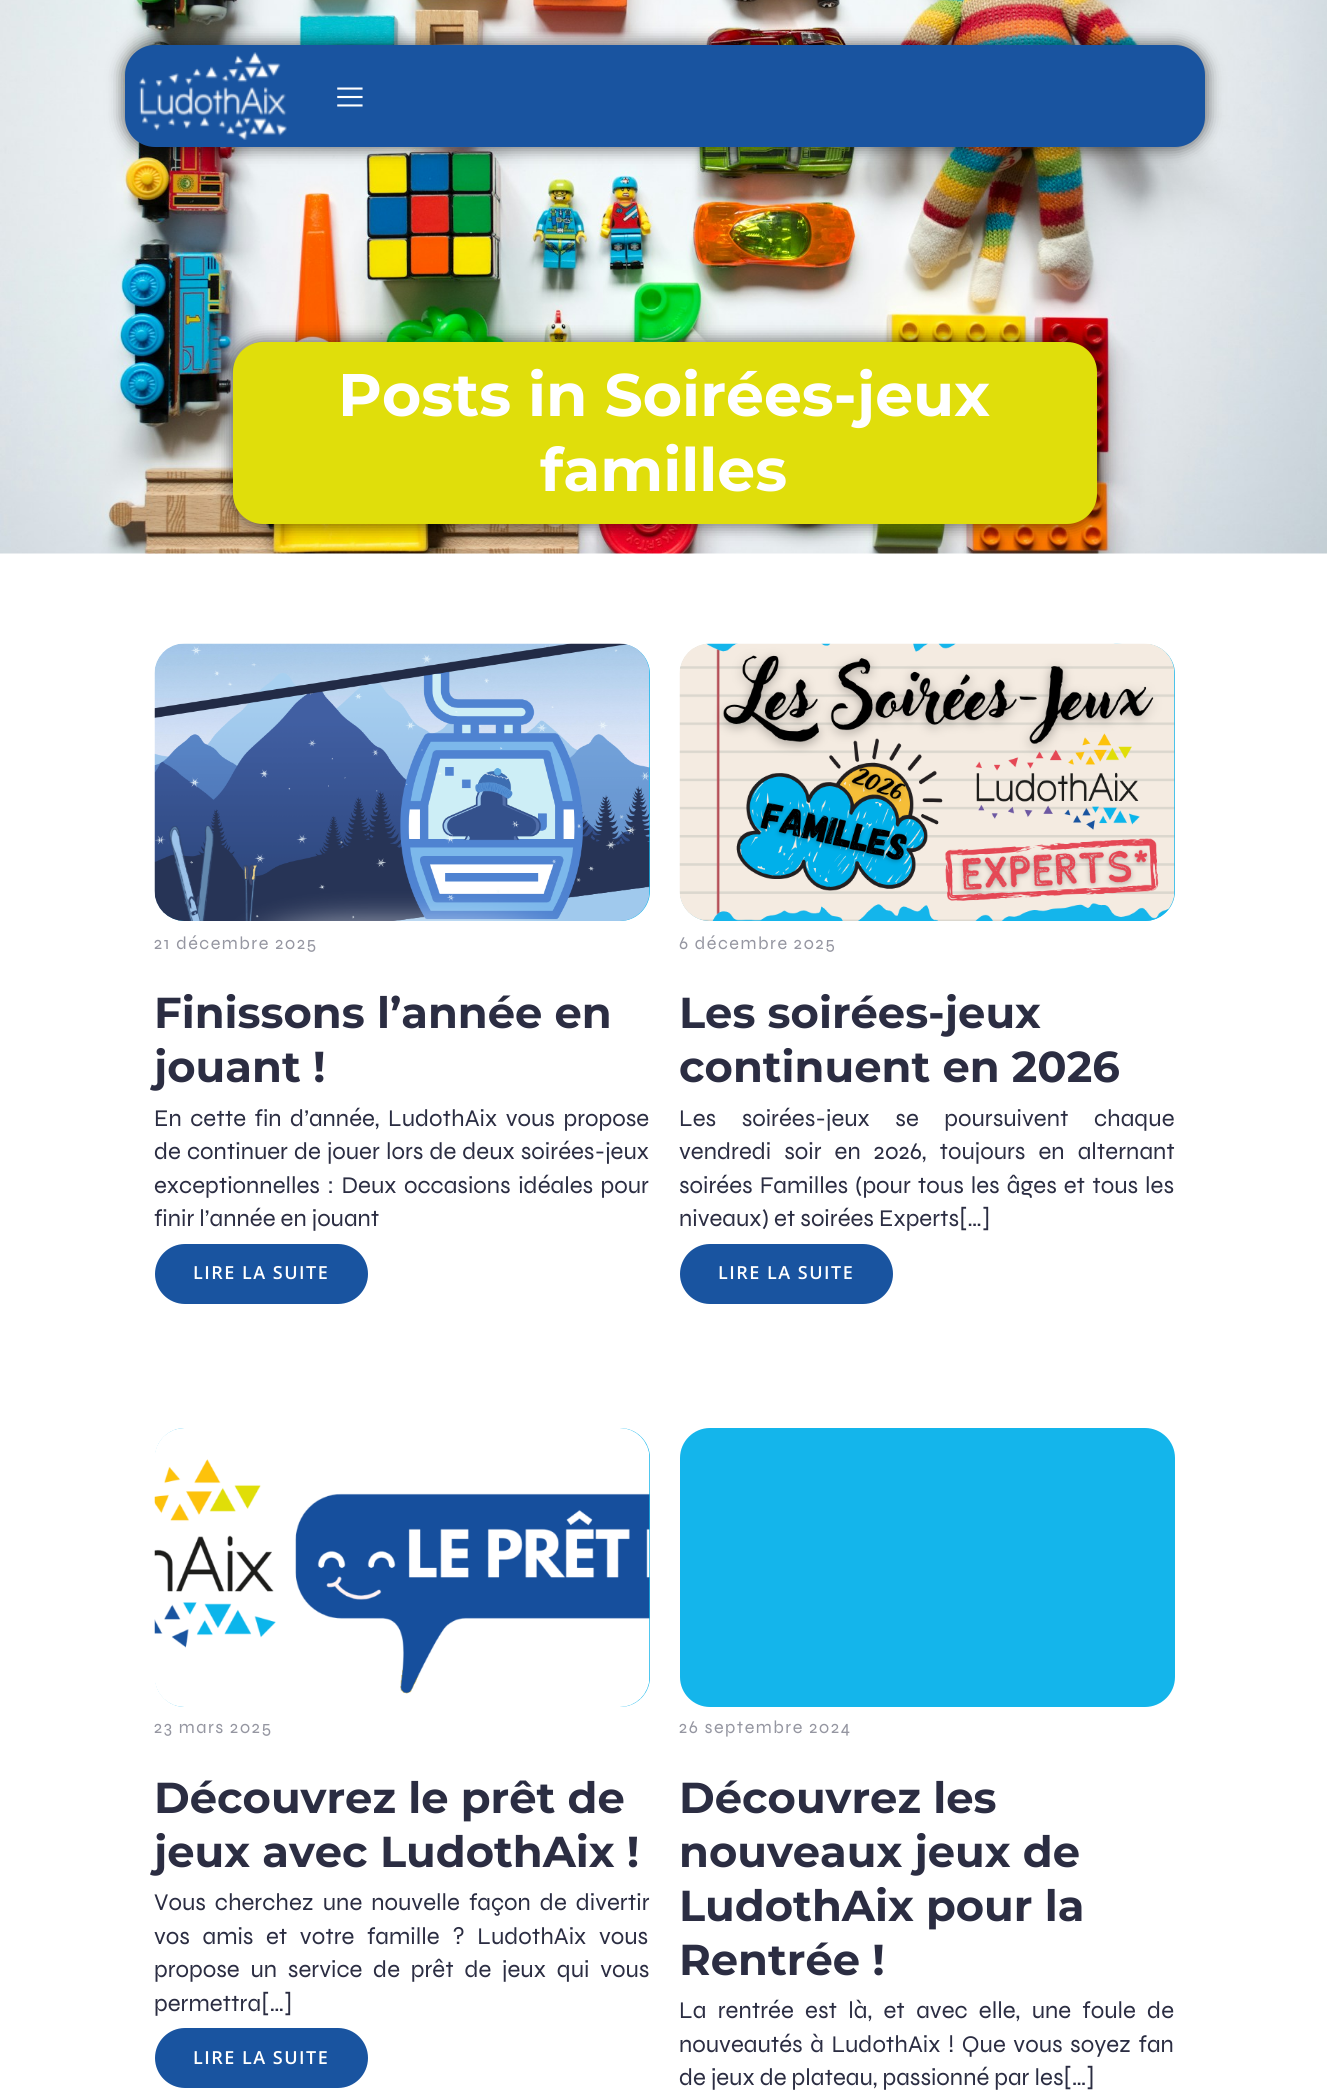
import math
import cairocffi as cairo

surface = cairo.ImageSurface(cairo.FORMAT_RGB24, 1327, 2090)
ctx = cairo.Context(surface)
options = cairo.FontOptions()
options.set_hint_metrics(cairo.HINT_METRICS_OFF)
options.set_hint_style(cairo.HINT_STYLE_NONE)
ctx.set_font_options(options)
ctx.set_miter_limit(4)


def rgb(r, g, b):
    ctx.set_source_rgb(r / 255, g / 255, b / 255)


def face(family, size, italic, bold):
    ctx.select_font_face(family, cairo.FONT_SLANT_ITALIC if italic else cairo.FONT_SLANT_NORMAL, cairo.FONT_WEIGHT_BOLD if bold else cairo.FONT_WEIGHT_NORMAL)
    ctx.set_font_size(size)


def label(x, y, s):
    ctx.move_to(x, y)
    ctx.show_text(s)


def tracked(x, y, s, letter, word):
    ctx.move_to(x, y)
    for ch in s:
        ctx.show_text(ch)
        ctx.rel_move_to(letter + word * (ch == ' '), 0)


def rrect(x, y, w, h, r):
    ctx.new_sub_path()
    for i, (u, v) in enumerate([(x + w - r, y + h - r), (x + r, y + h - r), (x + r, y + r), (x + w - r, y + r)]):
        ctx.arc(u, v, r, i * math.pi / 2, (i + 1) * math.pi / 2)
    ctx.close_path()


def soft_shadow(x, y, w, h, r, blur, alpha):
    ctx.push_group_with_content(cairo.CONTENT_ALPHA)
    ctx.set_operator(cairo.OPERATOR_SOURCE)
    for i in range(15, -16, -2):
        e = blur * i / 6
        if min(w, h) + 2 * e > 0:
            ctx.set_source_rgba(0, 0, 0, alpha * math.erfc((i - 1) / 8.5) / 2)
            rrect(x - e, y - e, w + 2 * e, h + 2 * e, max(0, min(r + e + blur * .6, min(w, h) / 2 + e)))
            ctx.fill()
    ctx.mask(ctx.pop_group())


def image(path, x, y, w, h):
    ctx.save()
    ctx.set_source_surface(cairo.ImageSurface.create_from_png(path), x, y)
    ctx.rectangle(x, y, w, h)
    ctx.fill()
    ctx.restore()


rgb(255, 255, 255)
ctx.paint()
image('image2.png', 0, 0, 1327, 554)
rgb(0, 0, 0)
soft_shadow(122, 42, 1086, 108, 33, 7.5, 0.5)
rgb(25, 84, 160)
rrect(125, 45, 1080, 102, 30)
ctx.fill()
image('image0.png', 139, 52, 148, 88)
image('image1.png', 337, 87, 26, 20)
rgb(0, 0, 0)
soft_shadow(230, 339, 870, 188, 33, 7.5, 0.5)
rgb(224, 222, 11)
rrect(233, 342, 864, 182, 30)
ctx.fill()
face('Montserrat', 60, 0, 1)
rgb(255, 255, 255)
label(338, 416, 'Posts in Soirées-jeux')
label(540, 491, 'familles')
rgb(20, 181, 235)
rrect(155, 644, 495, 277, 30)
ctx.fill()
image('image3.png', 154, 643, 496, 278)
face('Syne', 18, 0, 0)
rgb(149, 150, 161)
tracked(154, 949, '21 décembre 2025', 1.5, 0)
face('Montserrat', 43.25, 0, 1)
rgb(43, 45, 66)
label(154, 1028, 'Finissons l’année en')
label(154, 1082, 'jouant !')
face('Syne', 24, 0, 0)
tracked(154, 1126, 'En cette fin d’année, LudothAix vous propose', 0, 3.5)
tracked(154, 1159, 'de continuer de jouer lors de deux soirées-jeux', 0, 1)
tracked(154, 1193, 'exceptionnelles : Deux occasions idéales pour', 0, 2.5)
label(154, 1226, 'finir l’année en jouant')
rgb(25, 84, 160)
rrect(156.5, 1245.5, 210, 57, 28.5)
ctx.fill_preserve()
ctx.set_line_width(3)
ctx.stroke()
face('Open Sans SemiBold', 18, 0, 0)
rgb(255, 255, 255)
tracked(193, 1279, 'LIRE LA SUITE', 1.5, 0)
rgb(20, 181, 235)
rrect(680, 644, 495, 277, 30)
ctx.fill()
image('image4.png', 679, 643, 496, 278)
face('Syne', 18, 0, 0)
rgb(149, 150, 161)
tracked(679, 949, '6 décembre 2025', 1.5, 0)
face('Montserrat', 43.25, 0, 1)
rgb(43, 45, 66)
label(679, 1028, 'Les soirées-jeux')
label(679, 1082, 'continuent en 2026')
face('Syne', 24, 0, 0)
tracked(679, 1126, 'Les soirées-jeux se poursuivent chaque', 0, 20.5)
tracked(679, 1159, 'vendredi soir en 2026, toujours en alternant', 0, 8)
tracked(679, 1193, 'soirées Familles (pour tous les âges et tous les', 0, 2)
label(679, 1226, 'niveaux) et soirées Experts[…]')
rgb(25, 84, 160)
rrect(681.5, 1245.5, 210, 57, 28.5)
ctx.fill_preserve()
ctx.stroke()
face('Open Sans SemiBold', 18, 0, 0)
rgb(255, 255, 255)
tracked(718, 1279, 'LIRE LA SUITE', 1.5, 0)
rgb(20, 181, 235)
rrect(155, 1428, 495, 279, 30)
ctx.fill()
image('image5.png', 154, 1428, 496, 279)
face('Syne', 18, 0, 0)
rgb(149, 150, 161)
tracked(154, 1733, '23 mars 2025', 1.5, 0)
face('Montserrat', 43.25, 0, 1)
rgb(43, 45, 66)
label(154, 1813, 'Découvrez le prêt de')
label(154, 1867, 'jeux avec LudothAix !')
face('Syne', 24, 0, 0)
tracked(154, 1910, 'Vous cherchez une nouvelle façon de divertir', 0, 4)
tracked(154, 1944, 'vos amis et votre famille ? LudothAix vous', 0, 7.5)
tracked(154, 1977, 'propose un service de prêt de jeux qui vous', 0, 5.75)
label(154, 2011, 'permettra[…]')
rgb(25, 84, 160)
rrect(156.5, 2029.5, 210, 57, 28.5)
ctx.fill_preserve()
ctx.stroke()
face('Open Sans SemiBold', 18, 0, 0)
rgb(255, 255, 255)
tracked(193, 2064, 'LIRE LA SUITE', 1.5, 0)
rgb(20, 181, 235)
rrect(680, 1428, 495, 279, 30)
ctx.fill()
face('Syne', 18, 0, 0)
rgb(149, 150, 161)
tracked(679, 1733, '26 septembre 2024', 1.5, 0)
face('Montserrat', 43.25, 0, 1)
rgb(43, 45, 66)
label(679, 1813, 'Découvrez les')
label(679, 1867, 'nouveaux jeux de')
label(679, 1921, 'LudothAix pour la')
label(679, 1975, 'Rentrée !')
face('Syne', 24, 0, 0)
tracked(679, 2018, 'La rentrée est là, et avec elle, une foule de', 0, 6.25)
tracked(679, 2052, 'nouveautés à LudothAix ! Que vous soyez fan', 0, 2.5)
label(679, 2085, 'de jeux de plateau, passionné par les[…]')
surface.write_to_png('render.png')
